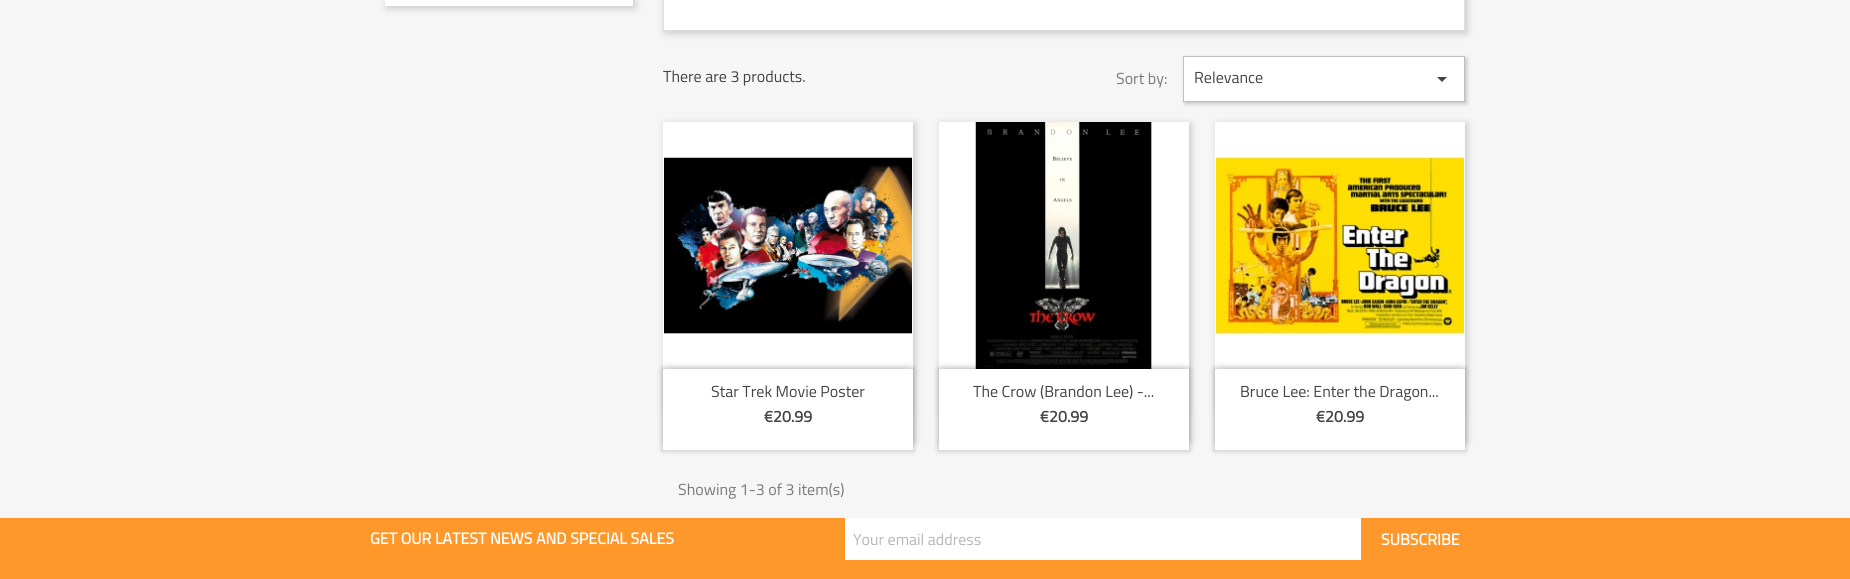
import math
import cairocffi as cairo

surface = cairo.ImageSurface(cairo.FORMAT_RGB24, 1850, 579)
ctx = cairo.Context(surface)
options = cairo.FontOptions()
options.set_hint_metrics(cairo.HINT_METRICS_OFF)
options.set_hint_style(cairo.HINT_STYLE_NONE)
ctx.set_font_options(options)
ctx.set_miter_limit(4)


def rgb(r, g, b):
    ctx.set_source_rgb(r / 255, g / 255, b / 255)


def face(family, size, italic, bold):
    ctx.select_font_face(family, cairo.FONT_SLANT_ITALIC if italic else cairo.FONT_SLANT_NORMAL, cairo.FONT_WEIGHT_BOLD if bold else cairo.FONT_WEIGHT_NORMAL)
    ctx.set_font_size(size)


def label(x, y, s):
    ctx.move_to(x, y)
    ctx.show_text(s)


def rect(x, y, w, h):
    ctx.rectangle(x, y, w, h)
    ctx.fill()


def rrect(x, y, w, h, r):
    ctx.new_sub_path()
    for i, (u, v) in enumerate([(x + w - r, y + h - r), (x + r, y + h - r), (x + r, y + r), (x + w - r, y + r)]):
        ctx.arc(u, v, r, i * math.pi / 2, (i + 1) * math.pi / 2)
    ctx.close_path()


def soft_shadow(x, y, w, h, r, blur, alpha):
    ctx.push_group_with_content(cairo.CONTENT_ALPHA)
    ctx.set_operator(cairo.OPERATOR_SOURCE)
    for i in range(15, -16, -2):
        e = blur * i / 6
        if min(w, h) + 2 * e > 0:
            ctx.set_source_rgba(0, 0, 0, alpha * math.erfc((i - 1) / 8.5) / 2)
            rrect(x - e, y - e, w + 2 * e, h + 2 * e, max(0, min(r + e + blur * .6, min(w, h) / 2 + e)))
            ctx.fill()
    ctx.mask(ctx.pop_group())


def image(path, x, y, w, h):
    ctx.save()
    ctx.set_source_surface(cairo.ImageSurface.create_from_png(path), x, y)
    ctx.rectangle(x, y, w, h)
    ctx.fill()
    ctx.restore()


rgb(255, 152, 43)
ctx.paint()
rgb(246, 246, 246)
rect(0, 0, 1850, 518)
rgb(0, 0, 0)
soft_shadow(387, -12, 248, 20, 0, 4, 0.2)
rgb(255, 255, 255)
rect(385, 0, 248, 6)
rgb(0, 0, 0)
soft_shadow(665, -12, 802, 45, 0, 4, 0.2)
rgb(255, 255, 255)
ctx.rectangle(663.5, -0.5, 801, 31)
ctx.fill_preserve()
rgb(223, 223, 223)
ctx.set_line_width(1)
ctx.stroke()
face('Titillium Web', 16, 0, 0)
rgb(68, 68, 68)
label(663, 82, 'There are 3 products.')
rgb(122, 122, 122)
label(1116, 84, 'Sort by:')
rgb(0, 0, 0)
soft_shadow(1185, 58, 282, 46, 0, 2, 0.2)
rgb(255, 255, 255)
ctx.rectangle(1183.5, 56.5, 281, 45)
ctx.fill_preserve()
rgb(191, 191, 191)
ctx.stroke()
rgb(68, 68, 68)
label(1194, 83, 'Relevance')
ctx.new_path()
ctx.move_to(1437, 77)
ctx.line_to(1447, 77)
ctx.line_to(1442, 82)
ctx.close_path()
ctx.fill()
rgb(0, 0, 0)
soft_shadow(665, 124, 250, 318, 0, 4, 0.2)
rgb(255, 255, 255)
rect(663, 122, 250, 247)
image('image0.png', 664, 157, 248, 177)
rgb(0, 0, 0)
soft_shadow(668, 370, 240, 40, 0, 5, 0.2)
soft_shadow(662, 368, 252, 83, 0, 2.5, 0.2)
rgb(255, 255, 255)
rect(663, 369, 250, 81)
rgb(68, 68, 68)
label(711, 397, 'Star Trek Movie Poster')
face('Titillium Web', 16, 0, 1)
label(764, 422, '€20.99')
rgb(0, 0, 0)
soft_shadow(941, 124, 250, 318, 0, 4, 0.2)
rgb(255, 255, 255)
rect(939, 122, 250, 247)
image('image1.png', 975, 122, 177, 247)
rgb(0, 0, 0)
soft_shadow(944, 370, 240, 40, 0, 5, 0.2)
soft_shadow(938, 368, 252, 83, 0, 2.5, 0.2)
rgb(255, 255, 255)
rect(939, 369, 250, 81)
face('Titillium Web', 16, 0, 0)
rgb(68, 68, 68)
label(973, 397, 'The Crow (Brandon Lee) -...')
face('Titillium Web', 16, 0, 1)
label(1040, 422, '€20.99')
rgb(0, 0, 0)
soft_shadow(1217, 124, 250, 318, 0, 4, 0.2)
rgb(255, 255, 255)
rect(1215, 122, 250, 247)
image('image2.png', 1216, 156, 248, 180)
rgb(0, 0, 0)
soft_shadow(1220, 370, 240, 40, 0, 5, 0.2)
soft_shadow(1214, 368, 252, 83, 0, 2.5, 0.2)
rgb(255, 255, 255)
rect(1215, 369, 250, 81)
face('Titillium Web', 16, 0, 0)
rgb(68, 68, 68)
label(1240, 397, 'Bruce Lee: Enter the Dragon...')
face('Titillium Web', 16, 0, 1)
label(1316, 422, '€20.99')
face('Titillium Web', 16, 0, 0)
rgb(122, 122, 122)
label(678, 495, 'Showing 1-3 of 3 item(s)')
face('Titillium Web', 16, 0, 1)
rgb(255, 255, 255)
label(370, 544, 'GET OUR LATEST NEWS AND SPECIAL SALES')
rect(845, 518, 516, 42)
face('Titillium Web', 16, 0, 0)
rgb(183, 183, 183)
label(853, 545, 'Your email address')
face('Titillium Web', 16, 0, 1)
rgb(255, 255, 255)
label(1381, 545, 'SUBSCRIBE')
surface.write_to_png('render.png')
